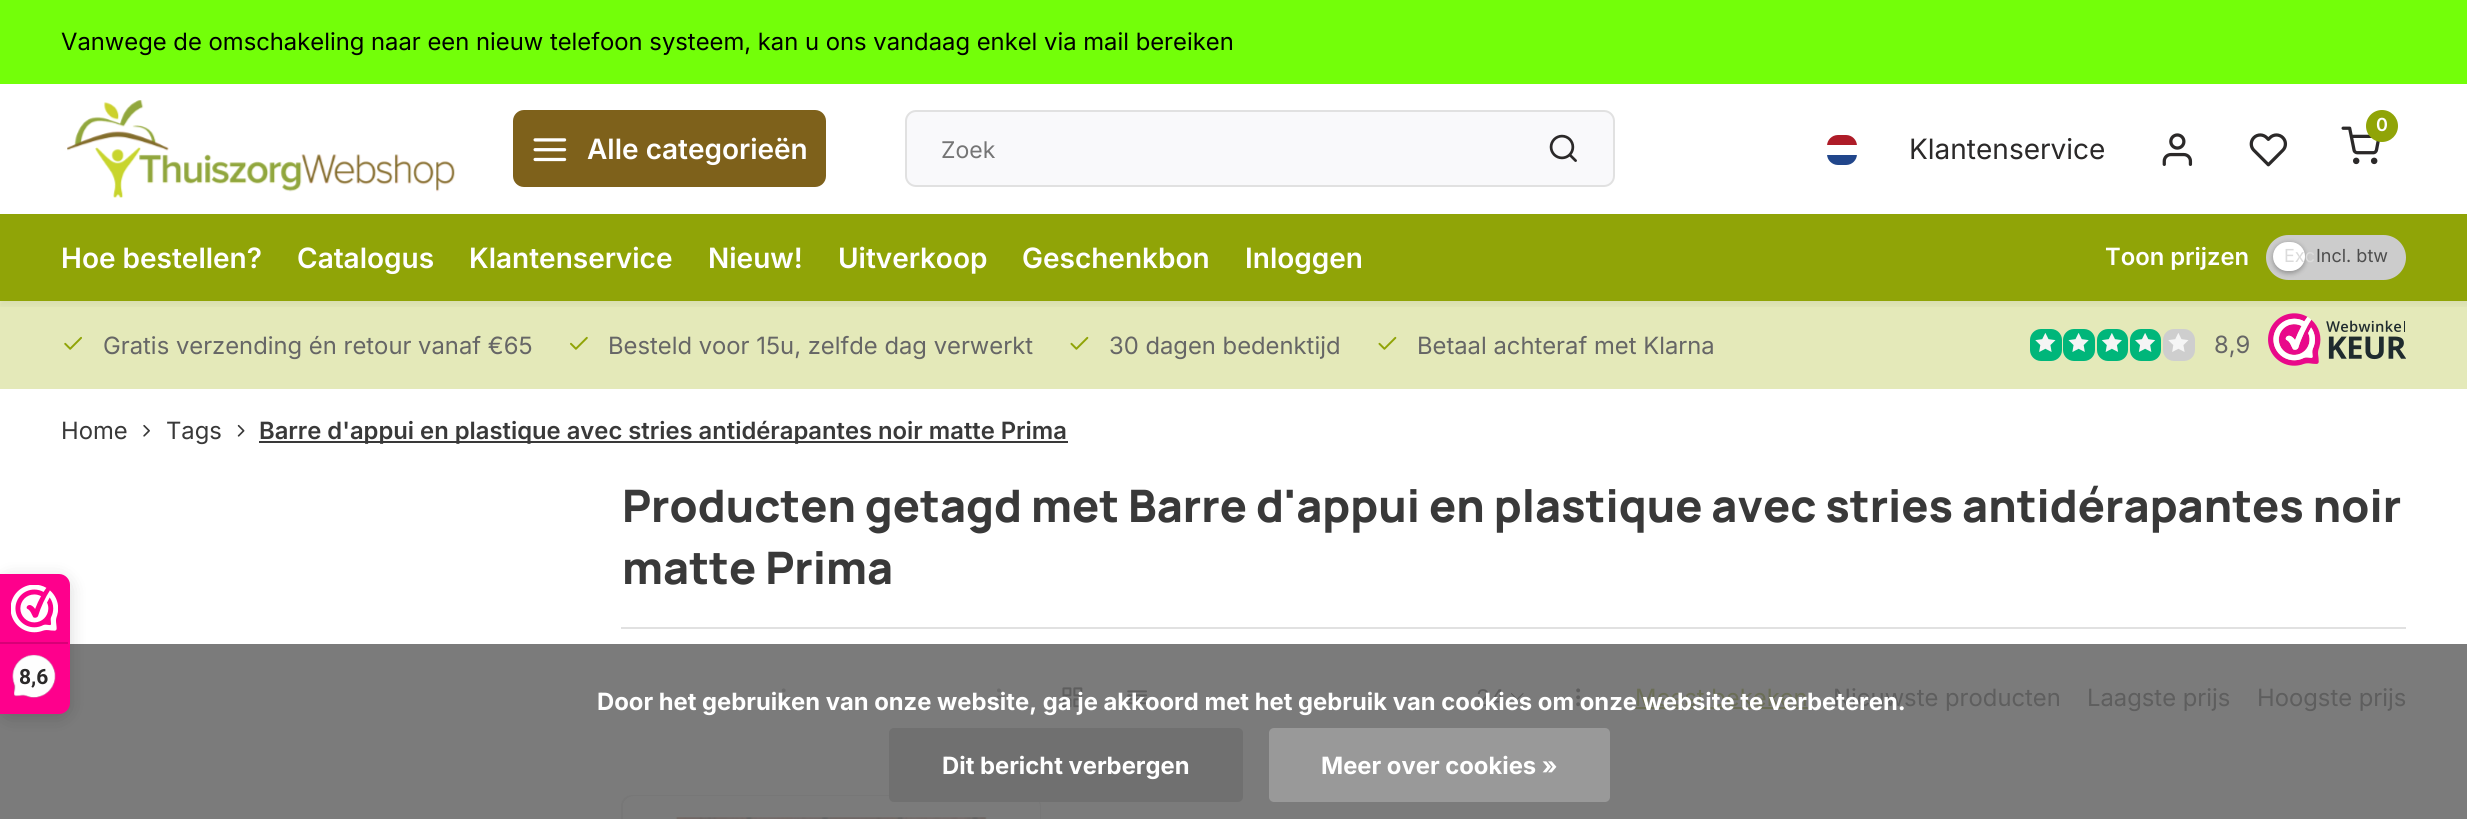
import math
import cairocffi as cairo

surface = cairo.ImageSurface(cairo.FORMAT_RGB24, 2467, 819)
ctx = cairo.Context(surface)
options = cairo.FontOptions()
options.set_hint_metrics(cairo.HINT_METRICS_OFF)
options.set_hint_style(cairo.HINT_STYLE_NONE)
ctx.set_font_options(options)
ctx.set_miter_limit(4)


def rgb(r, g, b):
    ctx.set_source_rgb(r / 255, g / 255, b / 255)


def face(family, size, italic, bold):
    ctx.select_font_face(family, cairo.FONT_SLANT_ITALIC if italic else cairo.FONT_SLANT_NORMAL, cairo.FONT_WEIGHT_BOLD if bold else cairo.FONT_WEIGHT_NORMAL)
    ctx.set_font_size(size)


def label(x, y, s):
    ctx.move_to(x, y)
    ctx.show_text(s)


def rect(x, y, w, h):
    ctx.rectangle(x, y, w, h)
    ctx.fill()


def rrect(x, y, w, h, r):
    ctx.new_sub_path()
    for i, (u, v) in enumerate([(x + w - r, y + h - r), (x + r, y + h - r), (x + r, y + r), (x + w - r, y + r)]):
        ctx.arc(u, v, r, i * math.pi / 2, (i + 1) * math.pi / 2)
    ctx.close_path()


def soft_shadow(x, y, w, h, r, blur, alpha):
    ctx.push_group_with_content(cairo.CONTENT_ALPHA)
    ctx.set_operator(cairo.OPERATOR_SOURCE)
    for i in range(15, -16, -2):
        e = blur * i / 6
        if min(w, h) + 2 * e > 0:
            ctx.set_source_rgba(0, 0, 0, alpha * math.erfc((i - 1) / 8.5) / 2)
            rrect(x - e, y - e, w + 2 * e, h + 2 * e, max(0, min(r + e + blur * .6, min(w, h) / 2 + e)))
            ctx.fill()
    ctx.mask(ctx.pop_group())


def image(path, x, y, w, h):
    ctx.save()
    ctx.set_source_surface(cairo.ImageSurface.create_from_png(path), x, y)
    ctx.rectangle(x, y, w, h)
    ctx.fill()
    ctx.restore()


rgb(255, 255, 255)
ctx.paint()
rgb(123, 123, 123)
rect(0, 644, 2467, 175)
rgb(0, 0, 0)
soft_shadow(0, 578, 70, 140, 11, 9, 0.15)
rgb(254, 0, 140)
ctx.new_path()
ctx.move_to(0, 574)
ctx.line_to(59, 574)
ctx.curve_to(65, 574, 70, 579, 70, 585)
ctx.line_to(70, 703)
ctx.curve_to(70, 709, 65, 714, 59, 714)
ctx.line_to(0, 714)
ctx.close_path()
ctx.fill()
image('image0.png', 11, 585, 47, 48)
rgb(216, 0, 119)
rect(0, 642, 68, 2)
image('image1.png', 12, 654, 44, 45)
face('Roboto', 21, 0, 1)
rgb(43, 41, 41)
label(19, 684, '8,6')
rgb(115, 255, 9)
rect(0, 0, 2467, 84)
face('Inter', 23.8, 0, 0)
rgb(0, 0, 0)
label(61, 50, 'Vanwege de omschakeling naar een nieuw telefoon systeem, kan u ons vandaag enkel via mail bereiken')
rgb(228, 233, 185)
rect(0, 301, 2467, 88)
image('image16.png', 2268, 313, 138, 53)
ctx.save()
ctx.rectangle(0, 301, 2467, 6)
ctx.clip()
rgb(0, 0, 0)
soft_shadow(0, 89, 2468, 217, 0, 3.5, 0.05)
ctx.restore()
image('image2.png', 67, 100, 388, 98)
rgb(126, 97, 27)
rrect(513, 110, 313, 77, 11)
ctx.fill()
image('image3.png', 533, 138, 34, 24)
face('Inter SemiBold', 28, 0, 0)
rgb(255, 255, 255)
label(587, 159, 'Alle categorieën')
rgb(249, 249, 251)
rrect(906, 111, 708, 75, 10)
ctx.fill_preserve()
rgb(225, 225, 225)
ctx.stroke()
face('Inter', 23, 0, 0)
rgb(117, 117, 117)
label(941, 158, 'Zoek')
image('image4.png', 1549, 134, 28, 28)
image('image5.png', 2341, 126, 39, 39)
rgb(144, 164, 7)
ctx.arc(2382, 126, 16, 0, 2 * math.pi)
ctx.fill()
face('Inter SemiBold', 18, 0, 0)
rgb(255, 255, 255)
label(2376, 131, '0')
ctx.save()
rrect(1827, 135, 30, 30, 11)
ctx.clip()
rgb(33, 70, 139)
rect(1827, 155, 30, 10)
rgb(174, 28, 40)
rect(1827, 135, 30, 10)
ctx.restore()
face('Inter', 28, 0, 0)
rgb(43, 41, 41)
label(1909, 159, 'Klantenservice')
image('image6.png', 2162, 133, 31, 33)
image('image7.png', 2249, 133, 39, 34)
rgb(144, 164, 7)
rect(0, 214, 2467, 87)
face('Inter SemiBold', 28, 0, 0)
rgb(255, 255, 255)
label(61, 268, 'Hoe bestellen?')
label(297, 268, 'Catalogus')
label(469, 268, 'Klantenservice')
label(708, 268, 'Nieuw!')
label(838, 268, 'Uitverkoop')
label(1022, 268, 'Geschenkbon')
label(1245, 268, 'Inloggen')
face('Inter SemiBold', 23.8, 0, 0)
label(2105, 265, 'Toon prijzen')
rgb(204, 204, 204)
rrect(2266, 235, 140, 45, 22.5)
ctx.fill()
rgb(0, 0, 0)
soft_shadow(2273, 243, 32, 30, 15, 2.5, 0.3)
rgb(255, 255, 255)
rrect(2273, 242, 32, 29, 14.5)
ctx.fill()
face('Inter', 18, 0, 0)
rgb(219, 219, 219)
label(2284, 262, 'Exc')
rgb(77, 77, 77)
label(2316, 262, 'Incl. btw')
image('image8.png', 64, 336, 18, 14)
face('Inter', 23.8, 0, 0)
rgb(102, 102, 102)
label(103, 354, 'Gratis verzending én retour vanaf €65')
image('image9.png', 570, 336, 18, 14)
label(608, 354, 'Besteld voor 15u, zelfde dag verwerkt')
image('image10.png', 1070, 336, 19, 14)
label(1109, 354, '30 dagen bedenktijd')
image('image10.png', 1378, 336, 19, 14)
label(1417, 354, 'Betaal achteraf met Klarna')
rgb(0, 182, 122)
rrect(2030, 329, 32, 32, 11)
ctx.fill()
image('image11.png', 2035, 333, 21, 19)
rrect(2063, 329, 32, 32, 11)
ctx.fill()
image('image12.png', 2068, 333, 21, 19)
rrect(2097, 329, 31, 32, 11)
ctx.fill()
image('image13.png', 2101, 333, 21, 19)
rrect(2130, 329, 31, 32, 11)
ctx.fill()
image('image14.png', 2135, 333, 21, 19)
rgb(206, 206, 206)
rrect(2163, 329, 32, 32, 11)
ctx.fill()
image('image15.png', 2168, 333, 21, 19)
rgb(102, 102, 102)
label(2214, 353, '8,9')
rgb(57, 57, 57)
label(61, 439, 'Home')
image('image17.png', 143, 424, 7, 13)
label(166, 439, 'Tags')
image('image18.png', 237, 424, 8, 13)
rect(259, 441, 809, 2)
face('Inter SemiBold', 23.8, 0, 0)
label(259, 439, 'Barre d\'appui en plastique avec stries antidérapantes noir matte Prima')
face('Manrope ExtraLight', 44.8, 0, 0)
label(622, 522, 'Producten getagd met Barre d\'appui en plastique avec stries antidérapantes noir')
label(622, 584, 'matte Prima')
rgb(225, 225, 225)
rect(621, 627, 1785, 2)
image('image19.png', 781, 688, 5, 19)
image('image20.png', 997, 688, 4, 19)
image('image21.png', 1062, 687, 21, 21)
image('image22.png', 1127, 690, 21, 15)
image('image23.png', 1511, 693, 13, 7)
face('Inter', 23, 0, 0)
rgb(94, 94, 94)
label(1476, 706, '24')
image('image24.png', 1576, 688, 5, 19)
face('Inter', 23.8, 0, 0)
rgb(107, 110, 86)
label(1635, 706, 'Meest bekeken')
rect(1635, 707, 173, 2)
rgb(94, 94, 94)
label(1833, 706, 'Nieuwste producten')
label(2087, 706, 'Laagste prijs')
label(2257, 706, 'Hoogste prijs')
rrect(622, 796, 418, 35, 10)
rgb(119, 119, 119)
ctx.stroke()
rgb(123, 123, 123)
ctx.new_path()
ctx.move_to(634, 796)
ctx.line_to(1029, 796)
ctx.curve_to(1035, 796, 1040, 801, 1040, 807)
ctx.line_to(1040, 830)
ctx.line_to(623, 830)
ctx.line_to(623, 807)
ctx.curve_to(623, 801, 628, 796, 634, 796)
ctx.close_path()
ctx.fill()
image('image25.png', 674, 817, 314, 2)
face('Inter', 23.8, 0, 1)
rgb(255, 255, 255)
label(597, 710, 'Door het gebruiken van onze website, ga je akkoord met het gebruik van cookies om onze website te verbeteren.')
rgb(112, 112, 112)
rrect(889, 728, 354, 74, 5)
ctx.fill()
rgb(255, 255, 255)
label(942, 774, 'Dit bericht verbergen')
rgb(153, 153, 153)
rrect(1269, 728, 341, 74, 5)
ctx.fill()
rgb(255, 255, 255)
label(1321, 774, 'Meer over cookies »')
surface.write_to_png('render.png')
